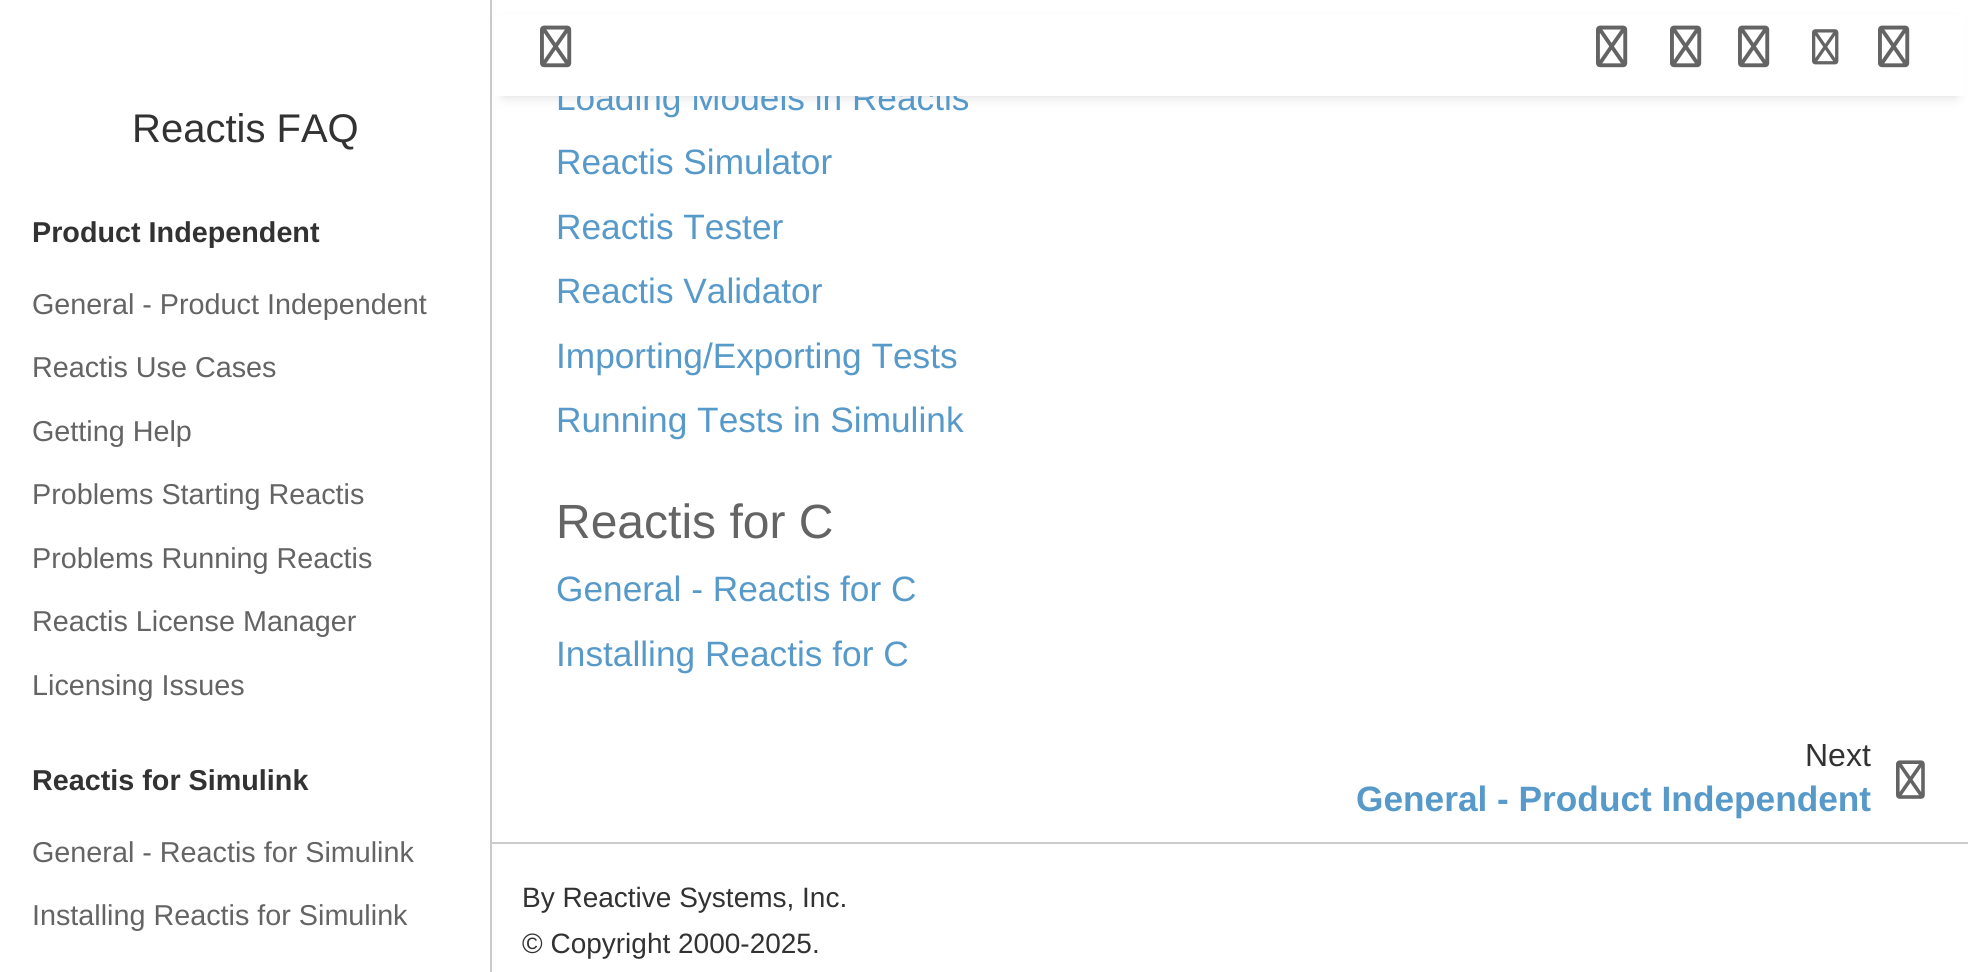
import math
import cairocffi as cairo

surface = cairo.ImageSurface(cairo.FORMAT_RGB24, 1968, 972)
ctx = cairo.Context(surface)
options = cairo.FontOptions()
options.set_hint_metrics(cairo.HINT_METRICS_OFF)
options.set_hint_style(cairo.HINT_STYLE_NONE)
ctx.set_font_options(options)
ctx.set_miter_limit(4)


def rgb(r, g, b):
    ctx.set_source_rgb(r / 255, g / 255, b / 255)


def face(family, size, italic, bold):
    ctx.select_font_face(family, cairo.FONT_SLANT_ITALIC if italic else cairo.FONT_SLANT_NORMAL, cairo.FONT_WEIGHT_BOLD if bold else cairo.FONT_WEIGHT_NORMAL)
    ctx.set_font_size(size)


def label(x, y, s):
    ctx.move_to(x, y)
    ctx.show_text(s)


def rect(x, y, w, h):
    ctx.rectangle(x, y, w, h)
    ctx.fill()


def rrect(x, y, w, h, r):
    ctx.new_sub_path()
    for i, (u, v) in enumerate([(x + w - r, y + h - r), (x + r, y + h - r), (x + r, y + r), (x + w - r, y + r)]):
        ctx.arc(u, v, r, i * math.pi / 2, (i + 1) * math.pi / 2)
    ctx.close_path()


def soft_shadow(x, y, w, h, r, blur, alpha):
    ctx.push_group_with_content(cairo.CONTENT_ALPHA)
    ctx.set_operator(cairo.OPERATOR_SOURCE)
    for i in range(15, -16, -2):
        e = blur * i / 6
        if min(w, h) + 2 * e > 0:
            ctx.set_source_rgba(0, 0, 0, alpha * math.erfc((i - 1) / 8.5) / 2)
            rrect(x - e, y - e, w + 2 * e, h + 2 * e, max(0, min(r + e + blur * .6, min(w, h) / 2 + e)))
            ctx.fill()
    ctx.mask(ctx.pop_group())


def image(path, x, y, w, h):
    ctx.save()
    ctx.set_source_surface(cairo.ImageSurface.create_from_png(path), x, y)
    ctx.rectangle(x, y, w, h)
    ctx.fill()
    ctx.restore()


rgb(255, 255, 255)
ctx.paint()
rgb(201, 201, 201)
rect(490, 0, 2, 972)
face('Liberation Sans', 40, 0, 0)
rgb(50, 50, 50)
label(132, 142, 'Reactis FAQ')
face('Liberation Sans', 28.75, 0, 1)
label(32, 242, 'Product Independent')
face('Liberation Sans', 28.75, 0, 0)
rgb(100, 100, 100)
label(32, 314, 'General - Product Independent')
label(32, 377, 'Reactis Use Cases')
label(32, 441, 'Getting Help')
label(32, 504, 'Problems Starting Reactis')
label(32, 568, 'Problems Running Reactis')
label(32, 631, 'Reactis License Manager')
label(32, 695, 'Licensing Issues')
face('Liberation Sans', 28.75, 0, 1)
rgb(50, 50, 50)
label(32, 790, 'Reactis for Simulink')
face('Liberation Sans', 28.75, 0, 0)
rgb(100, 100, 100)
label(32, 862, 'General - Reactis for Simulink')
label(32, 925, 'Installing Reactis for Simulink')
rgb(216, 216, 216)
soft_shadow(504, 24, 1452, 72, 0, 6, 1)
face('Liberation Sans', 35.25, 0, 0)
rgb(87, 154, 202)
label(556, 110, 'Loading Models in Reactis')
rgb(255, 255, 255)
rect(495, 15, 1470, 81)
image('image0.png', 540, 25, 32, 43)
image('image0.png', 1596, 25, 32, 43)
image('image0.png', 1670, 25, 32, 43)
image('image0.png', 1738, 25, 32, 43)
image('image1.png', 1812, 29, 27, 36)
image('image0.png', 1878, 25, 32, 43)
rgb(87, 154, 202)
label(556, 174, 'Reactis Simulator')
label(556, 239, 'Reactis Tester')
label(556, 303, 'Reactis Validator')
label(556, 368, 'Importing/Exporting Tests')
label(556, 432, 'Running Tests in Simulink')
face('Liberation Sans', 48, 0, 0)
rgb(100, 100, 100)
label(556, 538, 'Reactis for C')
face('Liberation Sans', 35.25, 0, 0)
rgb(87, 154, 202)
label(556, 601, 'General - Reactis for C')
label(556, 666, 'Installing Reactis for C')
face('Liberation Sans', 32, 0, 0)
rgb(50, 50, 50)
label(1805, 766, 'Next')
face('Liberation Sans', 35.25, 0, 1)
rgb(87, 154, 202)
label(1356, 811, 'General - Product Independent')
image('image2.png', 1896, 760, 29, 39)
rgb(204, 204, 204)
rect(492, 842, 1476, 2)
face('Liberation Sans', 28, 0, 0)
rgb(50, 50, 50)
label(522, 907, 'By Reactive Systems, Inc.')
label(522, 953, '© Copyright 2000-2025.')
surface.write_to_png('render.png')
